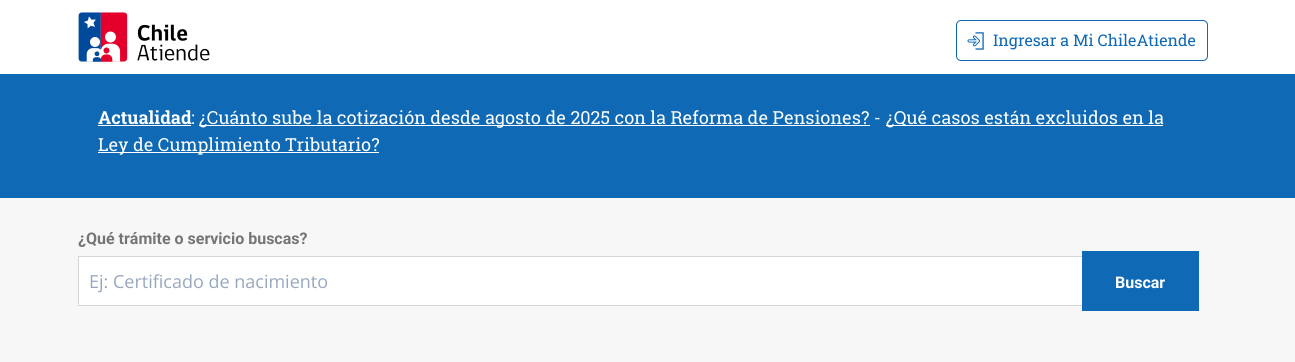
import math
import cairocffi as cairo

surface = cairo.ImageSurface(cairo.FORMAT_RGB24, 1295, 362)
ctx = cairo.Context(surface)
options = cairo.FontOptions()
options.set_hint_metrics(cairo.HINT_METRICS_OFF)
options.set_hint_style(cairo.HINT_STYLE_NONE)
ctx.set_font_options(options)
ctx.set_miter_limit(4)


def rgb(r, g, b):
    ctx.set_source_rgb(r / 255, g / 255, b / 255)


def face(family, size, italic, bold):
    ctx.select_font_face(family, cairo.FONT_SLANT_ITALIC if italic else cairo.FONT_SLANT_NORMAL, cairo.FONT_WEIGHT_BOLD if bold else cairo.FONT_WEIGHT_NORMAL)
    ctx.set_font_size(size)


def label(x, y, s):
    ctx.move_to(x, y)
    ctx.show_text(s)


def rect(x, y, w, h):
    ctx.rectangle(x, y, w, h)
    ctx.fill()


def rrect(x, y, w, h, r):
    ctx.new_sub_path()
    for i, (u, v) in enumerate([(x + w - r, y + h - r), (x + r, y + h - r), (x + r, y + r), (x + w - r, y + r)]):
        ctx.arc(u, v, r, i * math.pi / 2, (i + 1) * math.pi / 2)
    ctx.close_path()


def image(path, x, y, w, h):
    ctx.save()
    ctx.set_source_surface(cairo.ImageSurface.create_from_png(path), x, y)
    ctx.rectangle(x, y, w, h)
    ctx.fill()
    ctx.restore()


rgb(255, 255, 255)
ctx.paint()
image('image0.png', 78, 12, 132, 50)
rrect(956.5, 20.5, 251, 40, 4.5)
rgb(15, 105, 180)
ctx.set_line_width(1)
ctx.stroke()
image('image1.png', 967, 32, 17, 18)
face('Roboto Slab', 16, 0, 0)
label(993, 46, 'Ingresar a')
label(1073, 46, 'Mi ChileAtiende')
rect(0, 74, 1295, 124)
face('Roboto Slab', 18, 0, 1)
rgb(255, 255, 255)
label(98, 124, 'Actualidad')
rect(98, 125, 93, 1)
face('Roboto Slab', 18, 0, 0)
label(191, 124, ':')
rect(199, 125, 671, 1)
face('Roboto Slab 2', 18, 0, 0)
label(199, 124, '¿Cuánto sube la cotización desde agosto de 2025 con la Reforma de Pensiones? -')
rect(886, 125, 277, 1)
label(886, 124, '¿Qué casos están excluidos en la')
rect(98, 152, 281, 1)
label(98, 151, 'Ley de Cumplimiento Tributario?')
rgb(247, 247, 247)
rect(0, 198, 1295, 164)
face('Roboto', 16, 0, 1)
rgb(117, 117, 117)
label(78, 244, '¿Qué trámite o servicio buscas?')
rgb(255, 255, 255)
rect(79, 257, 1003, 48)
rgb(215, 214, 215)
rect(78, 256, 1004, 1)
rect(78, 305, 1004, 1)
rect(78, 256, 1, 50)
face('Open Sans', 18, 0, 0)
rgb(151, 168, 190)
label(89, 288, 'Ej: Certificado de nacimiento')
rgb(15, 105, 180)
rect(1082, 251, 117, 60)
face('Roboto', 16, 0, 1)
rgb(255, 255, 255)
label(1115, 288, 'Buscar')
surface.write_to_png('render.png')
